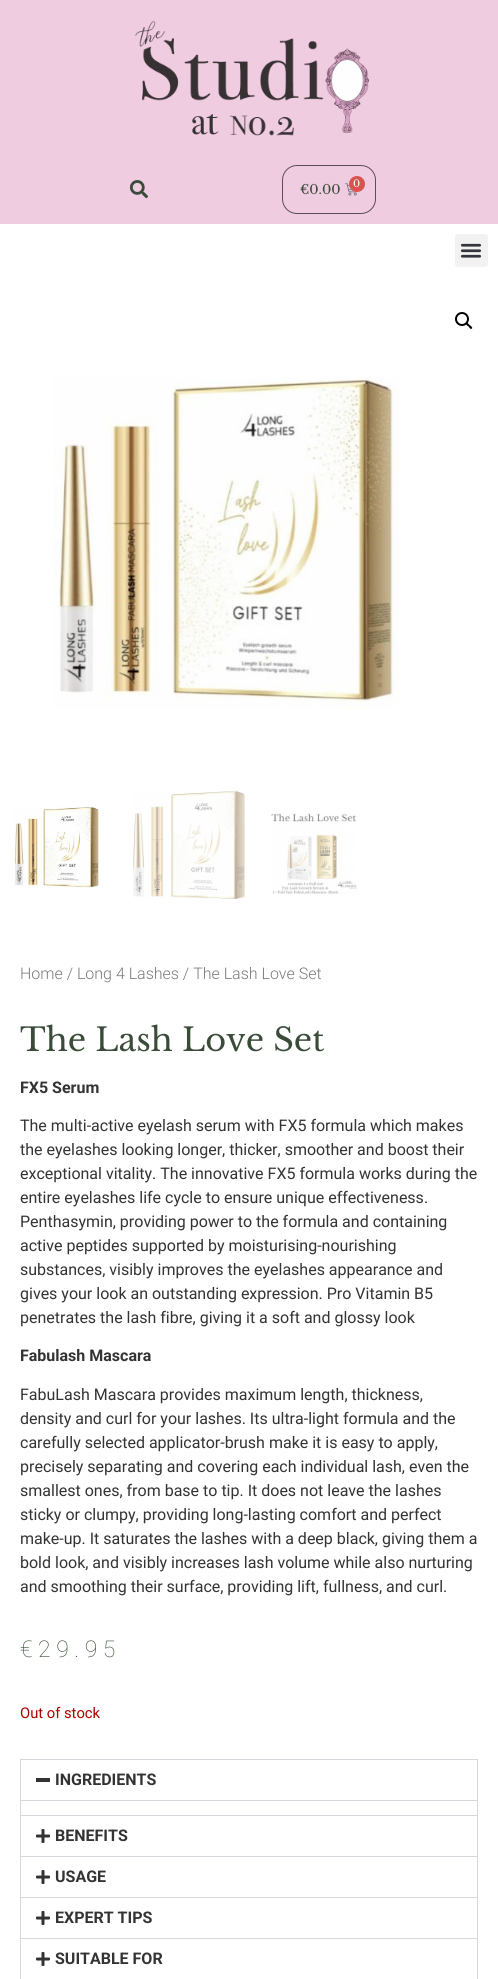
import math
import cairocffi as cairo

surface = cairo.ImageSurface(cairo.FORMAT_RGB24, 498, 1979)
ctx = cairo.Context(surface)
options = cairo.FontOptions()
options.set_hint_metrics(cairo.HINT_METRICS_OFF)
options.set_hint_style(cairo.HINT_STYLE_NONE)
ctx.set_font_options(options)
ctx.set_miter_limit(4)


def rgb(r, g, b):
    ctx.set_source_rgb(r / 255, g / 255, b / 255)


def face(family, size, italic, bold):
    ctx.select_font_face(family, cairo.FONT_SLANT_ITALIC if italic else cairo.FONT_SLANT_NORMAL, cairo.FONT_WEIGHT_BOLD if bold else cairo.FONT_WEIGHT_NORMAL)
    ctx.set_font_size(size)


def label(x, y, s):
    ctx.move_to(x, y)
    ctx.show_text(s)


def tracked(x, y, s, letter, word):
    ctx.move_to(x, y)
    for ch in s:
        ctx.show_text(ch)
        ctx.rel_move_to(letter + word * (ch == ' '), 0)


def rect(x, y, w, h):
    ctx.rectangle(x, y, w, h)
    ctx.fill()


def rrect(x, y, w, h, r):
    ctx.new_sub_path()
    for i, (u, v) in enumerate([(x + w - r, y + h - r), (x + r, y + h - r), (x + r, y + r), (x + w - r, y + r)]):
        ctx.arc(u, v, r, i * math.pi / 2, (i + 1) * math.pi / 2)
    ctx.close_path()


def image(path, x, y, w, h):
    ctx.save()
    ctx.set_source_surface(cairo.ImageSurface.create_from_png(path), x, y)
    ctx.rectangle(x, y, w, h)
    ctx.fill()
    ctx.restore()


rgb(255, 255, 255)
ctx.paint()
rgb(240, 204, 225)
rect(0, 0, 498, 224)
image('image0.png', 135, 20, 234, 116)
image('image1.png', 129, 180, 19, 19)
rrect(282.5, 165.5, 93, 48, 14.5)
rgb(92, 78, 86)
ctx.set_line_width(1)
ctx.stroke()
face('Libre Baskerville', 13, 0, 0)
rgb(58, 76, 57)
label(300, 194, '€0.00')
image('image2.png', 345, 183, 12, 13)
rgb(217, 83, 79)
ctx.arc(357, 184, 8, 0, 2 * math.pi)
ctx.fill()
face('Libre Baskerville', 10, 0, 0)
rgb(255, 255, 255)
label(353, 187, '0')
rgb(242, 242, 242)
rrect(455, 234, 33, 33, 3)
ctx.fill()
image('image3.png', 460, 243, 22, 15)
ctx.arc(462, 319, 6, 0, 2 * math.pi)
rgb(0, 0, 0)
ctx.set_line_width(2)
ctx.stroke()
ctx.new_path()
ctx.move_to(466, 323)
ctx.curve_to(467.5, 322, 469, 324.5, 469.5, 325)
ctx.curve_to(470.5, 325.5, 473, 327.5, 472, 328.5)
ctx.curve_to(470.5, 330, 469, 327, 468.5, 326.5)
ctx.curve_to(467.5, 326, 465, 324, 466, 323)
ctx.close_path()
ctx.fill()
image('image4.png', 53, 377, 346, 332)
image('image5.png', 14, 806, 85, 82)
image('image6.png', 133, 790, 112, 109)
image('image7.png', 271, 813, 86, 81)
face('Roboto Light', 16, 0, 0)
rgb(122, 122, 122)
label(20, 979, 'Home / Long 4 Lashes / The Lash Love Set')
face('Libre Baskerville', 32, 0, 0)
rgb(58, 76, 57)
label(20, 1051, 'The Lash Love Set')
face('Roboto', 16, 0, 1)
rgb(51, 51, 51)
label(20, 1093, 'FX5 Serum')
face('Roboto', 16, 0, 0)
label(20, 1131, 'The multi-active eyelash serum with FX5 formula which makes')
label(20, 1155, 'the eyelashes looking longer, thicker, smoother and boost their')
label(20, 1179, 'exceptional vitality. The innovative FX5 formula works during the')
label(20, 1203, 'entire eyelashes life cycle to ensure unique effectiveness.')
label(20, 1227, 'Penthasymin, providing power to the formula and containing')
label(20, 1251, 'active peptides supported by moisturising-nourishing')
label(20, 1275, 'substances, visibly improves the eyelashes appearance and')
label(20, 1299, 'gives your look an outstanding expression. Pro Vitamin B5')
label(20, 1323, 'penetrates the lash fibre, giving it a soft and glossy look')
face('Roboto', 16, 0, 1)
label(20, 1361, 'Fabulash Mascara')
face('Roboto', 16, 0, 0)
label(20, 1400, 'FabuLash Mascara provides maximum length, thickness,')
label(20, 1424, 'density and curl for your lashes. Its ultra-light formula and the')
label(20, 1448, 'carefully selected applicator-brush make it is easy to apply,')
label(20, 1472, 'precisely separating and covering each individual lash, even the')
label(20, 1496, 'smallest ones, from base to tip. It does not leave the lashes')
label(20, 1520, 'sticky or clumpy, providing long-lasting comfort and perfect')
label(20, 1544, 'make-up. It saturates the lashes with a deep black, giving them a')
label(20, 1568, 'bold look, and visibly increases lash volume while also nurturing')
label(20, 1592, 'and smoothing their surface, providing lift, fullness, and curl.')
face('Roboto Thin', 23, 0, 0)
rgb(58, 76, 57)
tracked(20, 1657, '€29.95', 5.5, 0)
face('Roboto', 14.75, 0, 0)
rgb(170, 0, 0)
label(20, 1718, 'Out of stock')
ctx.rectangle(20.5, 1759.5, 457, 56)
rgb(213, 216, 220)
ctx.set_line_width(1)
ctx.stroke()
rgb(51, 51, 51)
rect(36, 1778, 14, 4)
face('Roboto', 16, 0, 1)
label(55, 1785, 'INGREDIENTS')
rgb(213, 216, 220)
rect(21, 1800, 456, 1)
rect(477, 1816, 1, 163)
rect(20, 1856, 458, 1)
rect(20, 1816, 1, 41)
image('image8.png', 36, 1829, 14, 14)
rgb(51, 51, 51)
label(55, 1841, 'BENEFITS')
rgb(213, 216, 220)
rect(20, 1897, 458, 1)
rect(20, 1857, 1, 41)
image('image8.png', 36, 1870, 14, 14)
rgb(51, 51, 51)
label(55, 1882, 'USAGE')
rgb(213, 216, 220)
rect(20, 1938, 458, 1)
rect(20, 1898, 1, 81)
image('image8.png', 36, 1911, 14, 14)
rgb(51, 51, 51)
label(55, 1923, 'EXPERT TIPS')
image('image8.png', 36, 1952, 14, 14)
label(55, 1964, 'SUITABLE FOR')
surface.write_to_png('render.png')
